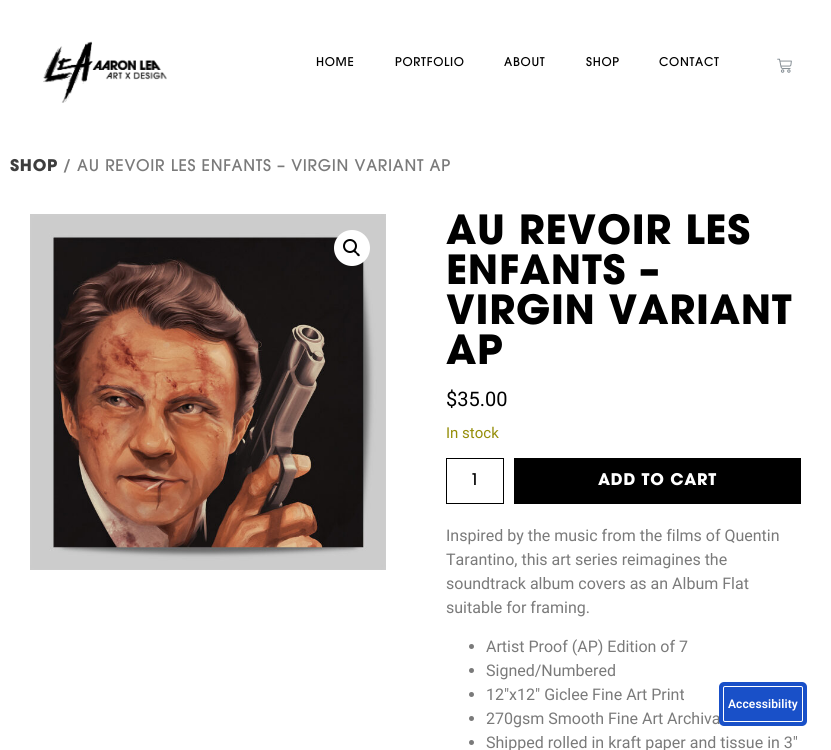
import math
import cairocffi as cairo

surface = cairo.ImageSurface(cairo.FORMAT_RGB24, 831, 750)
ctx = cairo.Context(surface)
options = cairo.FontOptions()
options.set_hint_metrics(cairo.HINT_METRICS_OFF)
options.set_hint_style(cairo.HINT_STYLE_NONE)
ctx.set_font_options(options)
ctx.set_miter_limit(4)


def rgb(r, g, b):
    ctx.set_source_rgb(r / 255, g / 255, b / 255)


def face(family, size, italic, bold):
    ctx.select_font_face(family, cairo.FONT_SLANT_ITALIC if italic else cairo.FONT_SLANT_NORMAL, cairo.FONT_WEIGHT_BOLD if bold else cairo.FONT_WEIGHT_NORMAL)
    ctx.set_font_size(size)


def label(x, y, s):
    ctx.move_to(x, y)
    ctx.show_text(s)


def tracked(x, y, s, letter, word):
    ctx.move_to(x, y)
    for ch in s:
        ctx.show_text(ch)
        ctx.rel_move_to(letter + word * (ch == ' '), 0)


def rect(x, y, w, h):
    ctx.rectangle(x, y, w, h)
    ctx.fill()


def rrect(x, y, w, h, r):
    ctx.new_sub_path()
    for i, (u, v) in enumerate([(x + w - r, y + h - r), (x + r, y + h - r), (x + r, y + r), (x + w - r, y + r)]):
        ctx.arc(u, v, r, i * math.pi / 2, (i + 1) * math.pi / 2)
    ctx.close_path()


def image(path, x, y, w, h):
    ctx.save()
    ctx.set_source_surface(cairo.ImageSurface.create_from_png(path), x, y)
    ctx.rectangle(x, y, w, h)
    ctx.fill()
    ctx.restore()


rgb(255, 255, 255)
ctx.paint()
image('image0.png', 43, 41, 124, 62)
face('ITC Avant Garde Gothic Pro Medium', 12, 0, 0)
rgb(0, 0, 0)
tracked(316, 66, 'HOME', 0.7, 0)
tracked(395, 66, 'PORTFOLIO', 0.7, 0)
tracked(504, 66, 'ABOUT', 0.7, 0)
tracked(586, 66, 'SHOP', 0.7, 0)
tracked(659, 66, 'CONTACT', 0.7, 0)
image('image1.png', 777, 58, 15, 15)
face('ITC Avant Garde Gothic Pro', 16, 0, 1)
rgb(62, 62, 62)
tracked(10, 171, 'SHOP', 0.7, 0)
face('ITC Avant Garde Gothic Pro Medium', 16, 0, 0)
rgb(122, 122, 122)
tracked(63, 171, '/ AU REVOIR LES ENFANTS – VIRGIN VARIANT AP', 0.7, 0)
image('image2.png', 30, 214, 356, 356)
rgb(255, 255, 255)
ctx.arc(352, 248, 18, 0, 2 * math.pi)
ctx.fill()
ctx.arc(350, 246, 6, 0, 2 * math.pi)
rgb(0, 0, 0)
ctx.stroke()
ctx.new_path()
ctx.move_to(353.5, 250)
ctx.curve_to(355, 249, 356.5, 251.5, 357, 252.5)
ctx.curve_to(358, 253, 360.5, 254.5, 359.5, 256)
ctx.curve_to(358, 257, 356.5, 254.5, 356, 253.5)
ctx.curve_to(355, 253, 352.5, 251.5, 353.5, 250)
ctx.close_path()
ctx.fill()
face('ITC Avant Garde Gothic Pro', 40, 0, 1)
tracked(446, 244, 'AU REVOIR LES', 0.7, 0)
tracked(446, 284, 'ENFANTS –', 0.7, 0)
tracked(446, 324, 'VIRGIN VARIANT', 0.7, 0)
tracked(446, 364, 'AP', 0.7, 0)
face('Roboto', 20, 0, 0)
label(446, 406, '$35.00')
face('Roboto', 15, 0, 0)
rgb(149, 142, 9)
label(446, 438, 'In stock')
ctx.rectangle(446.5, 458.5, 57, 45)
rgb(0, 0, 0)
ctx.set_line_width(1)
ctx.stroke()
face('ITC Avant Garde Gothic Pro Medium', 16, 0, 0)
label(470, 485, '1')
rect(514, 458, 287, 46)
face('ITC Avant Garde Gothic Pro', 16, 0, 1)
rgb(255, 255, 255)
tracked(598, 485, 'ADD TO CART', 0.7, 0)
face('Roboto', 16, 0, 0)
rgb(122, 122, 122)
label(446, 541, 'Inspired by the music from the films of Quentin')
label(446, 565, 'Tarantino, this art series reimagines the')
label(446, 589, 'soundtrack album covers as an Album Flat')
label(446, 613, 'suitable for framing.')
ctx.new_path()
ctx.arc(471.5, 646.5, 2.5, 0, 2 * math.pi)
ctx.fill()
label(486, 652, 'Artist Proof (AP) Edition of 7')
ctx.new_path()
ctx.arc(471.5, 670.5, 2.5, 0, 2 * math.pi)
ctx.fill()
label(486, 676, 'Signed/Numbered')
ctx.new_path()
ctx.arc(471.5, 694.5, 2.5, 0, 2 * math.pi)
ctx.fill()
label(486, 700, '12″x12″ Giclee Fine Art Print')
ctx.new_path()
ctx.arc(471.5, 718.5, 2.5, 0, 2 * math.pi)
ctx.fill()
label(486, 724, '270gsm Smooth Fine Art Archiva')
ctx.new_path()
ctx.arc(471.5, 742.5, 2.5, 0, 2 * math.pi)
ctx.fill()
label(486, 748, 'Shipped rolled in kraft paper and tissue in 3″')
rgb(25, 80, 200)
rrect(719, 682, 88, 44, 5)
ctx.fill()
rrect(723.5, 686.5, 79, 35, 1.5)
rgb(255, 255, 255)
ctx.stroke()
face('Roboto SemiBold', 12, 0, 0)
tracked(728, 708, 'Accessibility', 0.1, 0)
surface.write_to_png('render.png')
